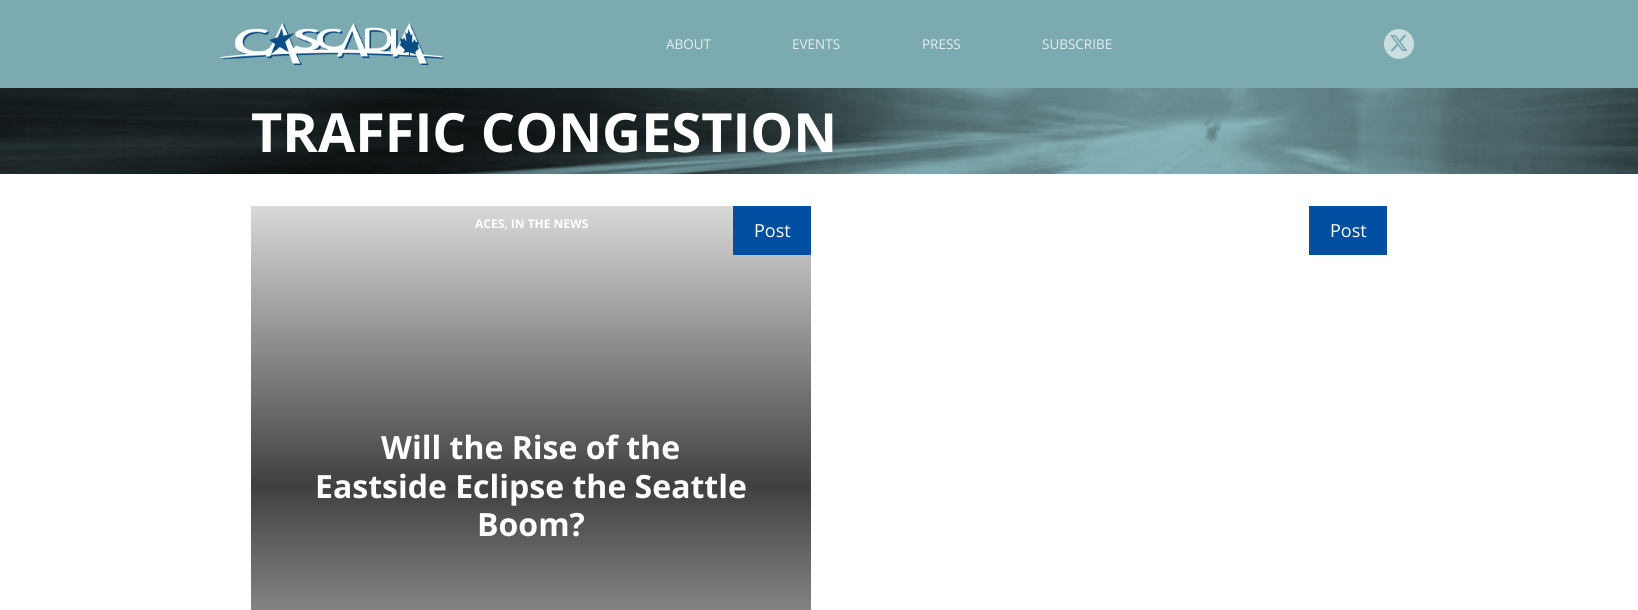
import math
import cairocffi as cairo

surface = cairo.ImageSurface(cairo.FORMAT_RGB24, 1638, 610)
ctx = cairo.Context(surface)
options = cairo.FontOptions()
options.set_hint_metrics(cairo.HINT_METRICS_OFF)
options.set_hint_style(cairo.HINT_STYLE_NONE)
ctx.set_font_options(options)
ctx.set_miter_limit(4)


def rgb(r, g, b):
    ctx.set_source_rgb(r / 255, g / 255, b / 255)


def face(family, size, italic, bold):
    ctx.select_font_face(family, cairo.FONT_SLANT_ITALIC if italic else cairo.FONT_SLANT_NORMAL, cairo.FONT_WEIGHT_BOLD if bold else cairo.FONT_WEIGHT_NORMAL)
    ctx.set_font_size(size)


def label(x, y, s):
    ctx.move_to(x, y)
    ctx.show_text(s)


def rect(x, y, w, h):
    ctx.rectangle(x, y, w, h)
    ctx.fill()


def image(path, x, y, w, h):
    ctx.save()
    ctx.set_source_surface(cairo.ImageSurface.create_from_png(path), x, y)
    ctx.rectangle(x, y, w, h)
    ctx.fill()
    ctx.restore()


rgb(255, 255, 255)
ctx.paint()
rgb(123, 170, 176)
rect(0, 0, 1638, 88)
image('image0.png', 220, 23, 224, 42)
face('Open Sans', 13.5, 0, 0)
rgb(229, 238, 239)
label(666, 49, 'ABOUT')
label(792, 49, 'EVENTS')
label(922, 49, 'PRESS')
label(1042, 49, 'SUBSCRIBE')
rgb(202, 221, 223)
ctx.new_path()
ctx.arc(1399, 44, 15, 0, 2 * math.pi)
ctx.fill()
image('image1.png', 1390, 35, 18, 16)
image('image2.png', 0, 88, 1638, 86)
face('Open Sans', 54, 0, 1)
rgb(255, 255, 255)
label(251, 152, 'TRAFFIC CONGESTION')
gradient = cairo.LinearGradient(531, 206, 531, 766)
gradient.add_color_stop_rgba(0, 0.851, 0.851, 0.851, 1)
gradient.add_color_stop_rgba(0.5, 0.251, 0.251, 0.251, 1)
gradient.add_color_stop_rgba(1, 0.851, 0.851, 0.851, 1)
ctx.set_source(gradient)
rect(251, 206, 560, 404)
face('Open Sans', 12, 0, 1)
rgb(255, 255, 255)
label(475, 228, 'ACES, IN THE NEWS')
face('Open Sans', 32, 0, 1)
label(381, 459, 'Will the Rise of the')
label(315, 498, 'Eastside Eclipse the Seattle')
label(477, 536, 'Boom?')
rgb(0, 79, 162)
rect(733, 206, 78, 49)
face('Open Sans', 18, 0, 0)
rgb(255, 255, 255)
label(754, 237, 'Post')
rgb(0, 79, 162)
rect(1309, 206, 78, 49)
rgb(255, 255, 255)
label(1330, 237, 'Post')
surface.write_to_png('render.png')
